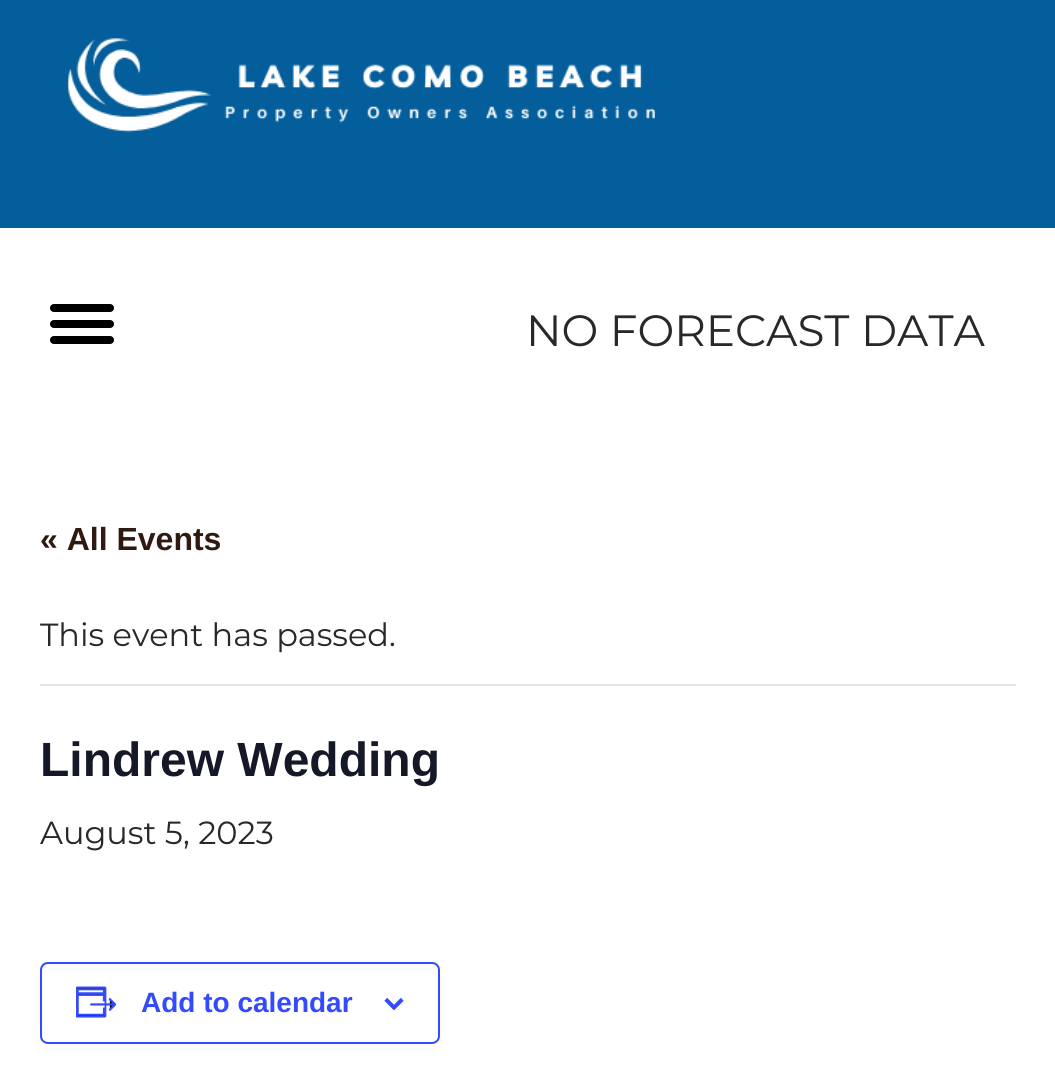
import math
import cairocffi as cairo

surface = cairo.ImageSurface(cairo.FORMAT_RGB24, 1055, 1077)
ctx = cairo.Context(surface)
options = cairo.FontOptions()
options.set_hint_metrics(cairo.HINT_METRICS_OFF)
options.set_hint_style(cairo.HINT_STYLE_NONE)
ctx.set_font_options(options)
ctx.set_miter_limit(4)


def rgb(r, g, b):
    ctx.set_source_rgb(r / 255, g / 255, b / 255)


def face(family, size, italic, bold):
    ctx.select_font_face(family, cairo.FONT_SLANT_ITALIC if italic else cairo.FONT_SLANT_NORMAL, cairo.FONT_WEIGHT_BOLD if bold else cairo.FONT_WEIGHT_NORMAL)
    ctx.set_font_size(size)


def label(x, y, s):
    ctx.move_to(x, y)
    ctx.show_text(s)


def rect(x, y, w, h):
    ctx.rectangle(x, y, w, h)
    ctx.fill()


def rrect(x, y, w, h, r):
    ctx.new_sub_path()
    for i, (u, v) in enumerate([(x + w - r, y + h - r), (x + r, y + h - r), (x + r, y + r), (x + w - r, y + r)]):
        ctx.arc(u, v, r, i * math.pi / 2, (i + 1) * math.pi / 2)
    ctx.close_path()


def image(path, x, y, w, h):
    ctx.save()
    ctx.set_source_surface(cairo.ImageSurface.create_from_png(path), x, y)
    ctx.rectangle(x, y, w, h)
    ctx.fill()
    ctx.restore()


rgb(255, 255, 255)
ctx.paint()
rgb(3, 94, 155)
rect(0, 0, 1055, 228)
image('image0.png', 67, 38, 588, 95)
rgb(0, 0, 0)
rrect(50, 304, 64, 8, 4)
ctx.fill()
rrect(50, 320, 64, 8, 4)
ctx.fill()
rrect(50, 336, 64, 8, 4)
ctx.fill()
face('Montserrat', 43.75, 0, 0)
rgb(40, 40, 40)
label(526, 346, 'NO FORECAST DATA')
face('Liberation Sans', 32, 0, 1)
rgb(47, 25, 16)
label(40, 550, '« All Events')
rgb(228, 228, 228)
rect(40, 684, 976, 2)
face('Montserrat', 32, 0, 0)
rgb(40, 40, 40)
label(40, 646, 'This event has passed.')
face('Liberation Sans', 48, 0, 1)
rgb(20, 24, 39)
label(40, 776, 'Lindrew Wedding')
face('Montserrat', 32, 0, 0)
rgb(40, 40, 40)
label(40, 844, 'August 5, 2023')
rrect(41, 963, 398, 80, 7)
rgb(51, 74, 255)
ctx.stroke()
image('image1.png', 76, 986, 41, 32)
face('Liberation Sans', 28, 0, 1)
label(141, 1012, 'Add to calendar')
image('image2.png', 384, 998, 20, 12)
surface.write_to_png('render.png')
